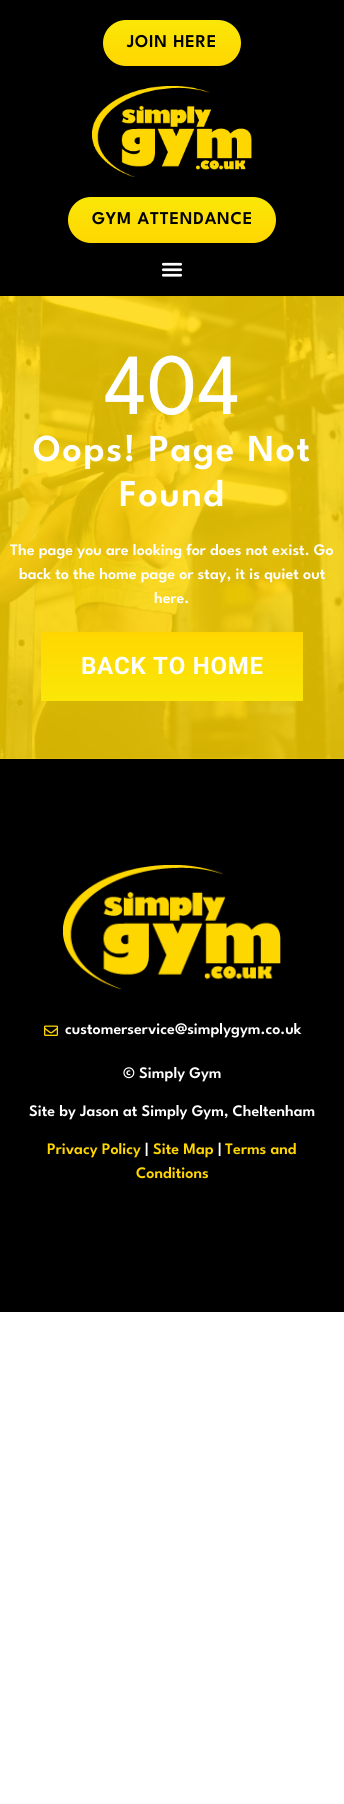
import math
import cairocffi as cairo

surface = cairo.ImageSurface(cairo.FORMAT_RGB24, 344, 1804)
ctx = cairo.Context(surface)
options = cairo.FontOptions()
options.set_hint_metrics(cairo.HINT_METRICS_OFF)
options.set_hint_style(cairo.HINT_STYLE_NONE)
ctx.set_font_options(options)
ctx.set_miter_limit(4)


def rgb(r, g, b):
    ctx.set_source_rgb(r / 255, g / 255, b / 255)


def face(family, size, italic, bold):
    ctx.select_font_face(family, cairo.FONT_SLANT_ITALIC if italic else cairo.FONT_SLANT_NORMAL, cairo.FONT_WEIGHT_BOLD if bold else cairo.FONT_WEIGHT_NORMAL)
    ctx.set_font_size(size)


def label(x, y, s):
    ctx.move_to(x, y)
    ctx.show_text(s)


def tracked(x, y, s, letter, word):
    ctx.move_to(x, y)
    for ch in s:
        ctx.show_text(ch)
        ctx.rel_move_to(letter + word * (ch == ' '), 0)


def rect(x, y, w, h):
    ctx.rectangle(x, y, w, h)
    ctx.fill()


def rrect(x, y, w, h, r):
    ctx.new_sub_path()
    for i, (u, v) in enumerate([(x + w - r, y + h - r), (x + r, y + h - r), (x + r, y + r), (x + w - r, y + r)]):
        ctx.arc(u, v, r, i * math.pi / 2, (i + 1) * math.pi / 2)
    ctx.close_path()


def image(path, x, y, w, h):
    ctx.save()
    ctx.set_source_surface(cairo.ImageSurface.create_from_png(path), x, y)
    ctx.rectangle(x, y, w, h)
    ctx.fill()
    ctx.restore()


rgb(255, 255, 255)
ctx.paint()
rgb(0, 0, 0)
rect(0, 0, 344, 296)
gradient = cairo.LinearGradient(172, 20, 172, 66)
gradient.add_color_stop_rgba(0, 0.98, 0.906, 0.027, 1)
gradient.add_color_stop_rgba(1, 1, 0.839, 0.004, 1)
ctx.set_source(gradient)
rrect(103, 20, 138, 46, 23)
ctx.fill()
face('League Spartan SemiBold', 18, 0, 0)
rgb(0, 0, 0)
tracked(127, 47, 'JOIN HERE', 0.75, 0)
image('image0.png', 92, 86, 160, 91)
gradient = cairo.LinearGradient(172, 197, 172, 243)
gradient.add_color_stop_rgba(0, 0.98, 0.906, 0.027, 1)
gradient.add_color_stop_rgba(1, 1, 0.839, 0.004, 1)
ctx.set_source(gradient)
rrect(68, 197, 208, 46, 23)
ctx.fill()
rgb(0, 0, 0)
tracked(92, 224, 'GYM ATTENDANCE', 0.75, 0)
image('image1.png', 161, 262, 22, 15)
image('image2.png', 0, 296, 344, 463)
face('League Spartan', 87, 0, 0)
rgb(255, 255, 255)
label(104, 414, '404')
face('League Spartan SemiBold', 38, 0, 0)
tracked(33, 461, 'Oops! Page Not', 1.6, 0)
tracked(119, 506, 'Found', 1.6, 0)
face('League Spartan SemiBold', 16, 0, 0)
label(10, 555, 'The page you are looking for does not exist. Go')
label(19, 579, 'back to the home page or stay, it is quiet out')
label(154, 603, 'here.')
gradient = cairo.LinearGradient(172, 632, 172, 701)
gradient.add_color_stop_rgba(0, 1, 0.839, 0.004, 1)
gradient.add_color_stop_rgba(1, 0.98, 0.906, 0.027, 1)
ctx.set_source(gradient)
rect(41, 632, 262, 69)
face('Roboto', 24, 0, 1)
rgb(255, 255, 255)
tracked(81, 674, 'BACK TO HOME', 0.75, 0)
rgb(0, 0, 0)
rect(0, 759, 344, 553)
image('image3.png', 63, 865, 218, 124)
image('image4.png', 44, 1025, 14, 11)
face('League Spartan SemiBold', 16, 0, 0)
rgb(255, 255, 255)
label(65, 1034, 'customerservice@simplygym.co.uk')
label(123, 1078, '© Simply Gym')
label(29, 1116, 'Site by Jason at Simply Gym, Cheltenham')
rgb(255, 214, 1)
label(47, 1154, 'Privacy Policy')
rgb(255, 255, 255)
label(145, 1154, '|')
rgb(255, 214, 1)
label(153, 1154, 'Site Map')
rgb(255, 255, 255)
label(218, 1154, '|')
rgb(255, 214, 1)
label(225, 1154, 'Terms and')
label(136, 1178, 'Conditions')
surface.write_to_png('render.png')
